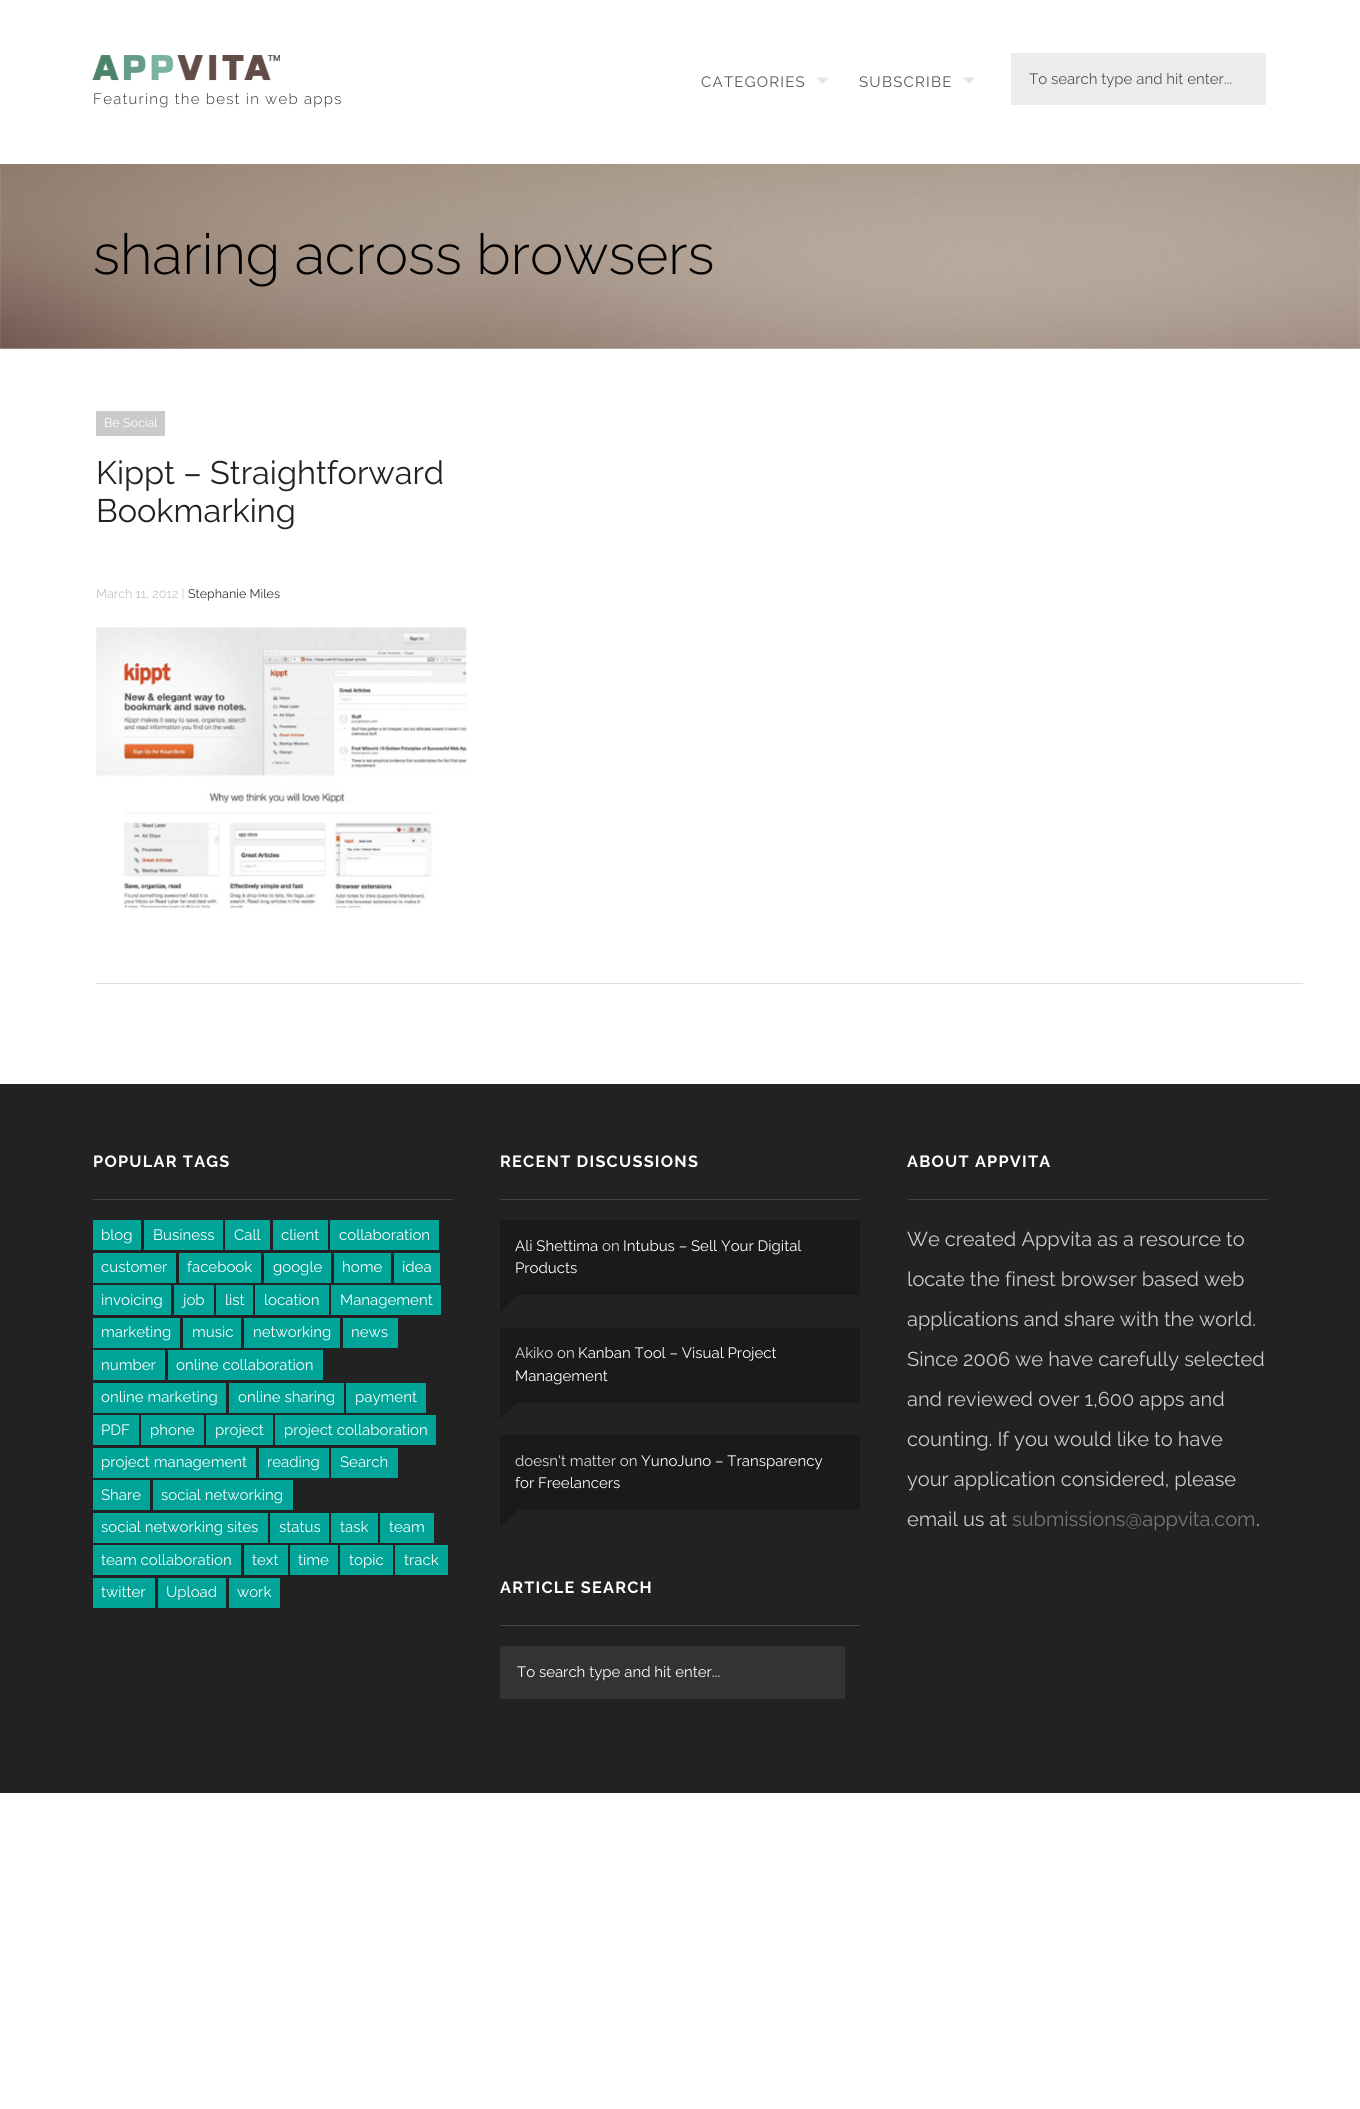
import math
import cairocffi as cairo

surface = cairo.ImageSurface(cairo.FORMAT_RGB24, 1360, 2109)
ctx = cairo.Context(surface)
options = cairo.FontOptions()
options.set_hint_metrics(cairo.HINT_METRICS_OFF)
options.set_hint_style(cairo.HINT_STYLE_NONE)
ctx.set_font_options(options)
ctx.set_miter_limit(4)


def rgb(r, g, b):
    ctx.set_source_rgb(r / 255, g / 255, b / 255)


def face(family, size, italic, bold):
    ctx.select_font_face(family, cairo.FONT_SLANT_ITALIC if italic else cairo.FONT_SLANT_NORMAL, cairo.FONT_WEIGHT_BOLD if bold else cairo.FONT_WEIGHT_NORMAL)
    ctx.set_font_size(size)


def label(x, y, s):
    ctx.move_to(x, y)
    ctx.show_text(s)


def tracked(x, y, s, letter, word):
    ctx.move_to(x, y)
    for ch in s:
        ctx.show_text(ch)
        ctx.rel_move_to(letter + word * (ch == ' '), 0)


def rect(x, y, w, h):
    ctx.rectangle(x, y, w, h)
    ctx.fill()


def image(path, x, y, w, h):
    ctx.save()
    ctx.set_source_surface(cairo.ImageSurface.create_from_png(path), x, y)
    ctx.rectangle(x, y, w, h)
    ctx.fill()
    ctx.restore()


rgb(255, 255, 255)
ctx.paint()
image('image1.png', 0, 163, 1360, 186)
ctx.set_source_rgba(1, 1, 1, 0.95)
rect(0, 163, 1360, 1)
face('Raleway', 15, 0, 0)
rgb(85, 85, 85)
tracked(701, 87, 'CATEGORIES', 1.25, 0)
rgb(229, 229, 229)
ctx.new_path()
ctx.move_to(816, 77.5)
ctx.line_to(829, 77.5)
ctx.line_to(822.5, 84)
ctx.close_path()
ctx.fill()
rgb(85, 85, 85)
tracked(859, 87, 'SUBSCRIBE', 1.25, 0)
rgb(229, 229, 229)
ctx.new_path()
ctx.move_to(962.5, 77.5)
ctx.line_to(975, 77.5)
ctx.line_to(969, 84)
ctx.close_path()
ctx.fill()
rgb(236, 236, 236)
rect(1011, 53, 255, 52)
rgb(85, 85, 85)
label(1029, 84, 'To search type and hit enter...')
image('image0.png', 92, 55, 188, 26)
face('Raleway Light', 15, 0, 0)
rgb(51, 51, 51)
tracked(93, 104, 'Featuring the best in web apps', 1.25, 0)
face('Raleway Light', 56.25, 0, 0)
rgb(0, 0, 0)
label(93, 274, 'sharing across browsers')
rgb(220, 220, 220)
rect(96, 983, 1207, 1)
rgb(202, 202, 202)
rect(96, 411, 69, 25)
face('Raleway', 12.5, 0, 0)
rgb(255, 255, 255)
label(104, 427, 'Be Social')
face('Raleway', 32.5, 0, 0)
rgb(34, 34, 34)
label(96, 484, 'Kippt – Straightforward')
label(96, 522, 'Bookmarking')
face('Raleway', 12.5, 0, 0)
rgb(194, 194, 194)
label(96, 598, 'March 11, 2012 |')
rgb(51, 51, 51)
label(188, 598, 'Stephanie Miles')
image('image2.png', 96, 627, 371, 282)
rgb(34, 34, 34)
rect(0, 1084, 1360, 709)
rgb(68, 68, 68)
rect(93, 1199, 360, 1)
face('Raleway', 16.25, 0, 1)
rgb(255, 255, 255)
tracked(93, 1167, 'POPULAR TAGS', 1.25, 0)
rgb(0, 164, 152)
rect(93, 1220, 48, 30)
face('Raleway', 15, 0, 0)
rgb(255, 255, 255)
label(101, 1240, 'blog')
rgb(0, 164, 152)
rect(144, 1220, 79, 30)
rgb(255, 255, 255)
label(153, 1240, 'Business')
rgb(0, 164, 152)
rect(225, 1220, 45, 30)
rgb(255, 255, 255)
label(234, 1240, 'Call')
rgb(0, 164, 152)
rect(273, 1220, 55, 30)
rgb(255, 255, 255)
label(281, 1240, 'client')
rgb(0, 164, 152)
rect(330, 1220, 109, 30)
rgb(255, 255, 255)
label(339, 1240, 'collaboration')
rgb(0, 164, 152)
rect(93, 1253, 83, 30)
rgb(255, 255, 255)
label(101, 1272, 'customer')
rgb(0, 164, 152)
rect(179, 1253, 82, 30)
rgb(255, 255, 255)
label(187, 1272, 'facebook')
rgb(0, 164, 152)
rect(264, 1253, 67, 30)
rgb(255, 255, 255)
label(273, 1272, 'google')
rgb(0, 164, 152)
rect(334, 1253, 57, 30)
rgb(255, 255, 255)
label(342, 1272, 'home')
rgb(0, 164, 152)
rect(394, 1253, 46, 30)
rgb(255, 255, 255)
label(402, 1272, 'idea')
rgb(0, 164, 152)
rect(93, 1285, 78, 30)
rgb(255, 255, 255)
label(101, 1305, 'invoicing')
rgb(0, 164, 152)
rect(174, 1285, 40, 30)
rgb(255, 255, 255)
label(183, 1305, 'job')
rgb(0, 164, 152)
rect(216, 1285, 37, 30)
rgb(255, 255, 255)
label(225, 1305, 'list')
rgb(0, 164, 152)
rect(255, 1285, 74, 30)
rgb(255, 255, 255)
label(264, 1305, 'location')
rgb(0, 164, 152)
rect(331, 1285, 110, 30)
rgb(255, 255, 255)
label(340, 1305, 'Management')
rgb(0, 164, 152)
rect(93, 1318, 87, 30)
rgb(255, 255, 255)
label(101, 1337, 'marketing')
rgb(0, 164, 152)
rect(183, 1318, 58, 30)
rgb(255, 255, 255)
label(192, 1337, 'music')
rgb(0, 164, 152)
rect(244, 1318, 96, 30)
rgb(255, 255, 255)
label(253, 1337, 'networking')
rgb(0, 164, 152)
rect(343, 1318, 55, 30)
rgb(255, 255, 255)
label(351, 1337, 'news')
rgb(0, 164, 152)
rect(93, 1350, 72, 30)
rgb(255, 255, 255)
label(101, 1370, 'number')
rgb(0, 164, 152)
rect(168, 1350, 155, 30)
rgb(255, 255, 255)
label(176, 1370, 'online collaboration')
rgb(0, 164, 152)
rect(93, 1383, 133, 30)
rgb(255, 255, 255)
label(101, 1402, 'online marketing')
rgb(0, 164, 152)
rect(229, 1383, 115, 30)
rgb(255, 255, 255)
label(238, 1402, 'online sharing')
rgb(0, 164, 152)
rect(346, 1383, 80, 30)
rgb(255, 255, 255)
label(355, 1402, 'payment')
rgb(0, 164, 152)
rect(93, 1415, 46, 30)
rgb(255, 255, 255)
label(101, 1435, 'PDF')
rgb(0, 164, 152)
rect(141, 1415, 63, 30)
rgb(255, 255, 255)
label(150, 1435, 'phone')
rgb(0, 164, 152)
rect(206, 1415, 67, 30)
rgb(255, 255, 255)
label(215, 1435, 'project')
rgb(0, 164, 152)
rect(275, 1415, 161, 30)
rgb(255, 255, 255)
label(284, 1435, 'project collaboration')
rgb(0, 164, 152)
rect(93, 1448, 163, 30)
rgb(255, 255, 255)
label(101, 1467, 'project management')
rgb(0, 164, 152)
rect(259, 1448, 70, 30)
rgb(255, 255, 255)
label(267, 1467, 'reading')
rgb(0, 164, 152)
rect(331, 1448, 67, 30)
rgb(255, 255, 255)
label(340, 1467, 'Search')
rgb(0, 164, 152)
rect(93, 1480, 57, 30)
rgb(255, 255, 255)
label(101, 1500, 'Share')
rgb(0, 164, 152)
rect(153, 1480, 140, 30)
rgb(255, 255, 255)
label(161, 1500, 'social networking')
rgb(0, 164, 152)
rect(93, 1513, 175, 30)
rgb(255, 255, 255)
label(101, 1532, 'social networking sites')
rgb(0, 164, 152)
rect(270, 1513, 59, 30)
rgb(255, 255, 255)
label(279, 1532, 'status')
rgb(0, 164, 152)
rect(331, 1513, 47, 30)
rgb(255, 255, 255)
label(340, 1532, 'task')
rgb(0, 164, 152)
rect(380, 1513, 54, 30)
rgb(255, 255, 255)
label(389, 1532, 'team')
rgb(0, 164, 152)
rect(93, 1545, 148, 30)
rgb(255, 255, 255)
label(101, 1565, 'team collaboration')
rgb(0, 164, 152)
rect(244, 1545, 44, 30)
rgb(255, 255, 255)
label(252, 1565, 'text')
rgb(0, 164, 152)
rect(290, 1545, 48, 30)
rgb(255, 255, 255)
label(298, 1565, 'time')
rgb(0, 164, 152)
rect(340, 1545, 53, 30)
rgb(255, 255, 255)
label(349, 1565, 'topic')
rgb(0, 164, 152)
rect(395, 1545, 53, 30)
rgb(255, 255, 255)
label(404, 1565, 'track')
rgb(0, 164, 152)
rect(93, 1578, 62, 30)
rgb(255, 255, 255)
label(101, 1597, 'twitter')
rgb(0, 164, 152)
rect(158, 1578, 68, 30)
rgb(255, 255, 255)
label(166, 1597, 'Upload')
rgb(0, 164, 152)
rect(229, 1578, 51, 30)
rgb(255, 255, 255)
label(237, 1597, 'work')
rgb(68, 68, 68)
rect(500, 1199, 360, 1)
face('Raleway', 16.25, 0, 1)
rgb(255, 255, 255)
tracked(500, 1167, 'RECENT DISCUSSIONS', 1.25, 0)
rgb(26, 26, 26)
rect(500, 1220, 360, 75)
face('Raleway', 15, 0, 0)
rgb(255, 255, 255)
label(515, 1251, 'Ali Shettima')
rgb(220, 220, 220)
label(602, 1251, 'on')
rgb(255, 255, 255)
label(623, 1251, 'Intubus – Sell Your Digital')
label(515, 1273, 'Products')
rgb(26, 26, 26)
ctx.new_path()
ctx.move_to(500, 1312.5)
ctx.line_to(500, 1295)
ctx.line_to(517.5, 1295)
ctx.close_path()
ctx.fill()
rect(500, 1328, 360, 75)
rgb(220, 220, 220)
label(515, 1358, 'Akiko on')
rgb(255, 255, 255)
label(578, 1358, 'Kanban Tool – Visual Project')
label(515, 1381, 'Management')
rgb(26, 26, 26)
ctx.new_path()
ctx.move_to(500, 1420)
ctx.line_to(500, 1402.5)
ctx.line_to(517.5, 1402.5)
ctx.close_path()
ctx.fill()
rect(500, 1435, 360, 75)
rgb(220, 220, 220)
label(515, 1466, 'doesn\'t matter on')
rgb(255, 255, 255)
label(641, 1466, 'YunoJuno – Transparency')
label(515, 1488, 'for Freelancers')
rgb(26, 26, 26)
ctx.new_path()
ctx.move_to(500, 1527.5)
ctx.line_to(500, 1510)
ctx.line_to(517.5, 1510)
ctx.close_path()
ctx.fill()
rgb(68, 68, 68)
rect(500, 1625, 360, 1)
face('Raleway', 16.25, 0, 1)
rgb(255, 255, 255)
tracked(500, 1593, 'ARTICLE SEARCH', 1.25, 0)
rgb(51, 51, 51)
rect(500, 1646, 345, 53)
face('Raleway', 15, 0, 0)
rgb(255, 255, 255)
label(517, 1677, 'To search type and hit enter...')
rgb(68, 68, 68)
rect(908, 1199, 360, 1)
face('Raleway', 16.25, 0, 1)
rgb(255, 255, 255)
tracked(907, 1167, 'ABOUT APPVITA', 1.25, 0)
face('Raleway', 20, 0, 0)
rgb(204, 204, 204)
label(907, 1246, 'We created Appvita as a resource to')
label(907, 1286, 'locate the finest browser based web')
label(907, 1326, 'applications and share with the world.')
label(907, 1366, 'Since 2006 we have carefully selected')
label(907, 1406, 'and reviewed over 1,600 apps and')
label(907, 1446, 'counting. If you would like to have')
label(907, 1486, 'your application considered, please')
label(907, 1526, 'email us at')
rgb(119, 119, 119)
label(1012, 1526, 'submissions@appvita.com')
rgb(204, 204, 204)
label(1256, 1526, '.')
surface.write_to_png('render.png')
